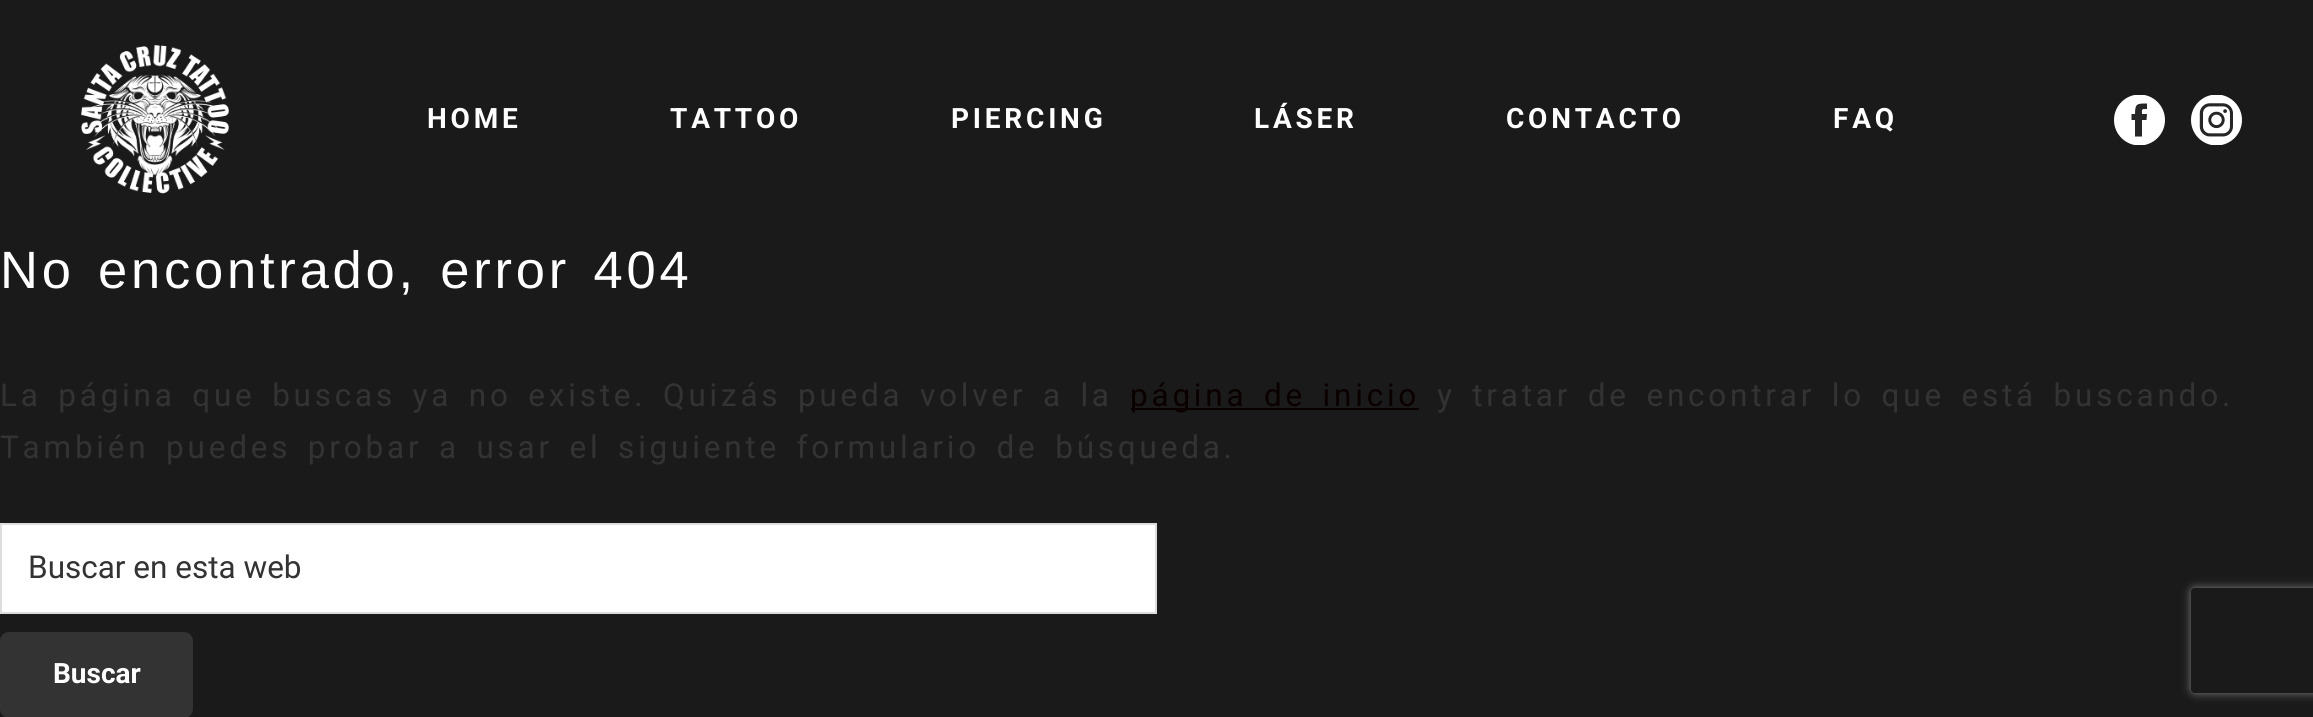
import math
import cairocffi as cairo

surface = cairo.ImageSurface(cairo.FORMAT_RGB24, 2313, 717)
ctx = cairo.Context(surface)
options = cairo.FontOptions()
options.set_hint_metrics(cairo.HINT_METRICS_OFF)
options.set_hint_style(cairo.HINT_STYLE_NONE)
ctx.set_font_options(options)
ctx.set_miter_limit(4)


def rgb(r, g, b):
    ctx.set_source_rgb(r / 255, g / 255, b / 255)


def face(family, size, italic, bold):
    ctx.select_font_face(family, cairo.FONT_SLANT_ITALIC if italic else cairo.FONT_SLANT_NORMAL, cairo.FONT_WEIGHT_BOLD if bold else cairo.FONT_WEIGHT_NORMAL)
    ctx.set_font_size(size)


def label(x, y, s):
    ctx.move_to(x, y)
    ctx.show_text(s)


def tracked(x, y, s, letter, word):
    ctx.move_to(x, y)
    for ch in s:
        ctx.show_text(ch)
        ctx.rel_move_to(letter + word * (ch == ' '), 0)


def rect(x, y, w, h):
    ctx.rectangle(x, y, w, h)
    ctx.fill()


def rrect(x, y, w, h, r):
    ctx.new_sub_path()
    for i, (u, v) in enumerate([(x + w - r, y + h - r), (x + r, y + h - r), (x + r, y + r), (x + w - r, y + r)]):
        ctx.arc(u, v, r, i * math.pi / 2, (i + 1) * math.pi / 2)
    ctx.close_path()


def soft_shadow(x, y, w, h, r, blur, alpha):
    ctx.push_group_with_content(cairo.CONTENT_ALPHA)
    ctx.set_operator(cairo.OPERATOR_SOURCE)
    for i in range(15, -16, -2):
        e = blur * i / 6
        if min(w, h) + 2 * e > 0:
            ctx.set_source_rgba(0, 0, 0, alpha * math.erfc((i - 1) / 8.5) / 2)
            rrect(x - e, y - e, w + 2 * e, h + 2 * e, max(0, min(r + e + blur * .6, min(w, h) / 2 + e)))
            ctx.fill()
    ctx.mask(ctx.pop_group())


def image(path, x, y, w, h):
    ctx.save()
    ctx.set_source_surface(cairo.ImageSurface.create_from_png(path), x, y)
    ctx.rectangle(x, y, w, h)
    ctx.fill()
    ctx.restore()


rgb(26, 26, 26)
ctx.paint()
image('image0.png', 81, 45, 148, 149)
face('Roboto', 28, 0, 1)
rgb(255, 255, 255)
tracked(427, 128, 'HOME', 3.78, 0)
tracked(670, 128, 'TATTOO', 3.78, 0)
tracked(951, 128, 'PIERCING', 3.78, 0)
tracked(1254, 128, 'LÁSER', 3.78, 0)
tracked(1506, 128, 'CONTACTO', 3.78, 0)
tracked(1833, 128, 'FAQ', 3.78, 0)
ctx.save()
ctx.rectangle(2114, 95, 51, 50)
ctx.clip()
ctx.arc(2139.5, 120, 25.5, 0, 2 * math.pi)
ctx.fill()
ctx.restore()
rgb(38, 38, 38)
ctx.new_path()
ctx.move_to(2147, 109)
ctx.curve_to(2141, 109, 2142, 109, 2142, 114)
ctx.line_to(2147, 114)
ctx.line_to(2146.5, 120)
ctx.line_to(2142, 120)
ctx.line_to(2142, 136.5)
ctx.line_to(2135, 136.5)
ctx.line_to(2135, 120)
ctx.line_to(2131.5, 120)
ctx.line_to(2131.5, 114)
ctx.line_to(2135, 114)
ctx.curve_to(2135, 103.5, 2137, 103.5, 2147, 103.5)
ctx.close_path()
ctx.fill()
image('image1.png', 2191, 95, 51, 50)
face('Liberation Sans', 52.5, 0, 0)
rgb(255, 255, 255)
tracked(0, 288, 'No encontrado, error 404', 3.78, 5)
face('Roboto', 31.5, 0, 0)
rgb(51, 51, 51)
tracked(0, 406, 'La página que buscas ya no existe. Quizás pueda volver a la', 3.78, 5)
rgb(10, 0, 0)
rect(1131, 408, 288, 2)
tracked(1130, 406, 'página de inicio', 3.78, 5)
rgb(51, 51, 51)
tracked(1437, 406, 'y tratar de encontrar lo que está buscando.', 3.78, 5)
tracked(0, 458, 'También puedes probar a usar el siguiente formulario de búsqueda.', 3.78, 5)
rgb(255, 255, 255)
ctx.rectangle(1, 524, 1155, 89)
ctx.fill_preserve()
rgb(221, 221, 221)
ctx.stroke()
rgb(51, 51, 51)
label(28, 578, 'Buscar en esta web')
rrect(0, 632, 193, 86, 9)
ctx.fill()
face('Roboto', 28, 0, 1)
rgb(255, 255, 255)
label(53, 683, 'Buscar')
ctx.save()
ctx.set_fill_rule(cairo.FILL_RULE_EVEN_ODD)
ctx.new_path()
ctx.move_to(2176, 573)
ctx.line_to(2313, 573)
ctx.line_to(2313, 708)
ctx.line_to(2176, 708)
ctx.close_path()
ctx.move_to(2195, 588)
ctx.line_to(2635, 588)
ctx.curve_to(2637, 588, 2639, 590, 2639, 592)
ctx.line_to(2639, 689)
ctx.curve_to(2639, 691, 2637, 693, 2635, 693)
ctx.line_to(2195, 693)
ctx.curve_to(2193, 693, 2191, 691, 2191, 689)
ctx.line_to(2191, 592)
ctx.curve_to(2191, 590, 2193, 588, 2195, 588)
ctx.close_path()
ctx.clip()
rgb(128, 128, 128)
soft_shadow(2191, 588, 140, 105, 4, 4.5, 1)
ctx.restore()
surface.write_to_png('render.png')
